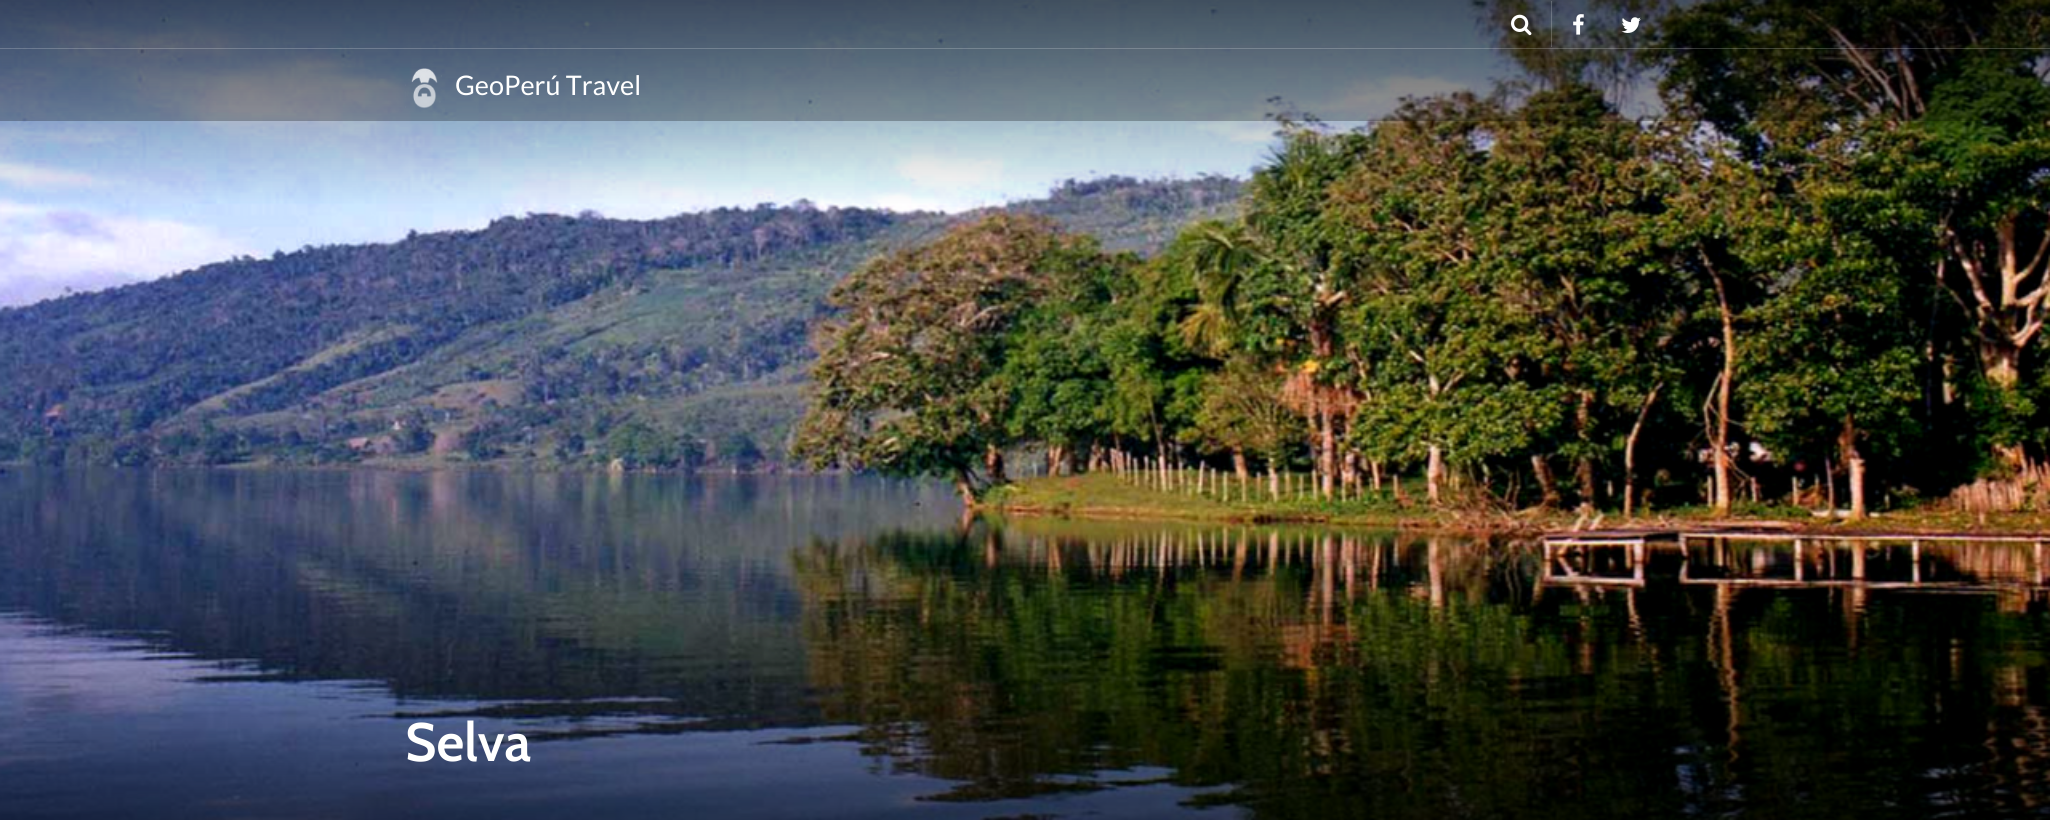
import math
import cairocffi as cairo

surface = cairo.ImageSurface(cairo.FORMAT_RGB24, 2050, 834)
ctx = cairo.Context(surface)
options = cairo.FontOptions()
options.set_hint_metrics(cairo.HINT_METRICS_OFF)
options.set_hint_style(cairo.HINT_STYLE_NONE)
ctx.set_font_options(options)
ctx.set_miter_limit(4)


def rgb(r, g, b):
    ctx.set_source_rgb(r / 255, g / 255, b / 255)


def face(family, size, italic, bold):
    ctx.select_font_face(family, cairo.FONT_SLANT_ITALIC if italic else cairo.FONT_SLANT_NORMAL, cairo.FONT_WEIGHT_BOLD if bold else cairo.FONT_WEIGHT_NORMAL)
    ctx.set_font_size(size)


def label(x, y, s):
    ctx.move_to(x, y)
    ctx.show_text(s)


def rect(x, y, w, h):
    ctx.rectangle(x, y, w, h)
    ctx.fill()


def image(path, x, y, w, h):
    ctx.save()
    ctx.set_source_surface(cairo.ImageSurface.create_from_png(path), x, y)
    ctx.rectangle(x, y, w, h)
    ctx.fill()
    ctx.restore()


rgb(255, 255, 255)
ctx.paint()
image('image4.png', 0, 0, 2050, 820)
ctx.set_source_rgba(0, 0, 0, 0.26)
rect(0, 0, 2050, 121)
ctx.set_source_rgba(1, 1, 1, 0.2)
rect(0, 48, 2050, 1)
rect(1551, 1, 1, 46)
image('image0.png', 1511, 14, 21, 22)
image('image1.png', 1573, 14, 11, 21)
image('image2.png', 1621, 17, 20, 16)
image('image3.png', 405, 68, 37, 41)
face('Lato', 27, 0, 0)
rgb(255, 255, 255)
label(455, 95, 'GeoPerú Travel')
face('Cabin SemiBold', 54, 0, 0)
label(405, 761, 'Selva')
surface.write_to_png('render.png')
